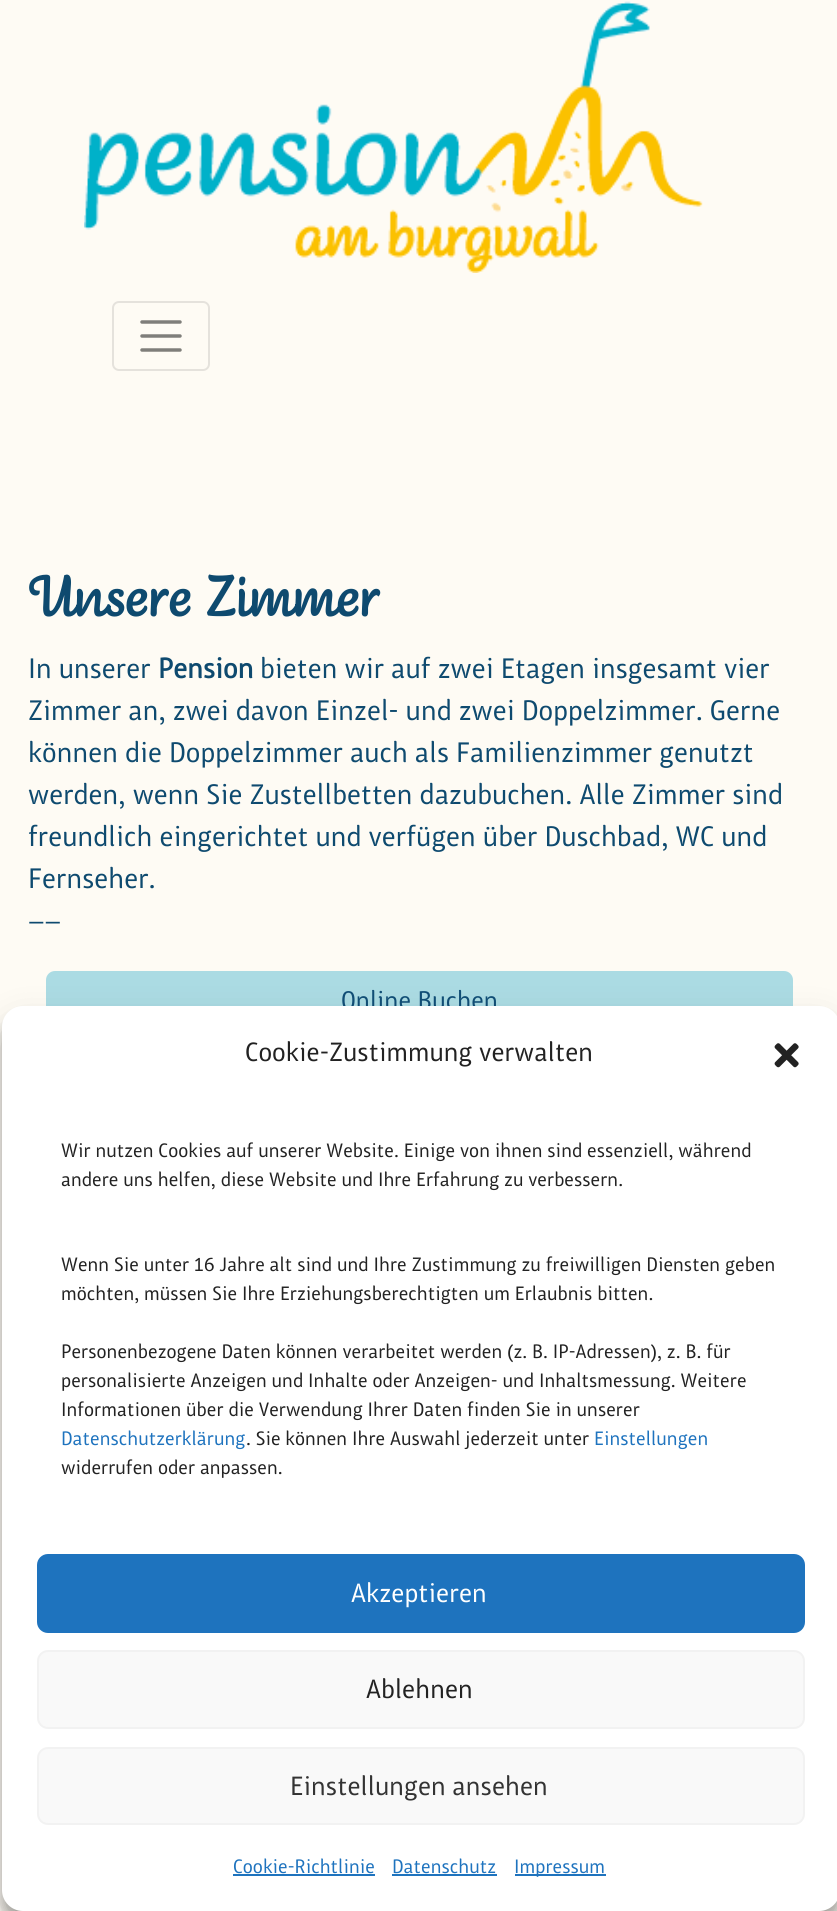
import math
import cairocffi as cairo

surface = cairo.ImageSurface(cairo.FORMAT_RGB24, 837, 1911)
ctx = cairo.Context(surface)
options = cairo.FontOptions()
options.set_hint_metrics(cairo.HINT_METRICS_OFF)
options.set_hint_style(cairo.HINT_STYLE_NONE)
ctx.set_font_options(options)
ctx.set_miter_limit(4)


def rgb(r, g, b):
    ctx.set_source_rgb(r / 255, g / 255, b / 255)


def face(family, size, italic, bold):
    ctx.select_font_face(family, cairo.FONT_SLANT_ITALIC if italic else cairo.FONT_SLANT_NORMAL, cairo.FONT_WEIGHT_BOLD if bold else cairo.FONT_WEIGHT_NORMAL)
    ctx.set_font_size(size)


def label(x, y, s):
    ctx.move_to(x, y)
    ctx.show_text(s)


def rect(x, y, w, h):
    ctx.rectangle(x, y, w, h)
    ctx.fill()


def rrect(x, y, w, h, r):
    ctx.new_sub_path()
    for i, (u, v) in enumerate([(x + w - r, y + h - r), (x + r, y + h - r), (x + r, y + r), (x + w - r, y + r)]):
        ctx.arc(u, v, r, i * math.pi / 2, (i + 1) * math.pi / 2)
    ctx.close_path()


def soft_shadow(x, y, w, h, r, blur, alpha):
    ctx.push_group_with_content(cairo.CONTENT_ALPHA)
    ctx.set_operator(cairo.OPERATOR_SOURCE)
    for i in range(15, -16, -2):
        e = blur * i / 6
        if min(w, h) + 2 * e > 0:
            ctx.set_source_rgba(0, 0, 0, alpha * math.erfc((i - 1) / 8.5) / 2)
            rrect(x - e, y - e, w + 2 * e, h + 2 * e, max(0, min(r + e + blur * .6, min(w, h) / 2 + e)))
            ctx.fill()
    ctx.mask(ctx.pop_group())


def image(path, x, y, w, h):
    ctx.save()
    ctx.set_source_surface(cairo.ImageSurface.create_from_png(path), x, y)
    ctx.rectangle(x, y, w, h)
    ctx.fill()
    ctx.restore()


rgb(254, 251, 244)
ctx.paint()
image('image0.png', 84, 1, 619, 272)
rrect(113, 302, 96, 68, 6)
rgb(229, 226, 220)
ctx.stroke()
ctx.new_path()
ctx.move_to(142, 322)
ctx.line_to(180, 322)
ctx.move_to(142, 336)
ctx.line_to(180, 336)
ctx.move_to(142, 350)
ctx.line_to(180, 350)
rgb(127, 126, 122)
ctx.set_line_width(3.5)
ctx.set_line_cap(cairo.LINE_CAP_ROUND)
ctx.stroke()
face('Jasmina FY', 56, 0, 1)
rgb(14, 74, 111)
label(28, 616, 'Unsere Zimmer')
face('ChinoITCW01', 28, 0, 0)
label(28, 678, 'In unserer')
face('ChinoITCW01', 28, 0, 1)
label(158, 678, 'Pension')
face('ChinoITCW01', 28, 0, 0)
label(260, 678, 'bieten wir auf zwei Etagen insgesamt vier')
label(28, 720, 'Zimmer an, zwei davon Einzel- und zwei Doppelzimmer. Gerne')
label(28, 762, 'können die Doppelzimmer auch als Familienzimmer genutzt')
label(28, 804, 'werden, wenn Sie Zustellbetten dazubuchen. Alle Zimmer sind')
label(28, 846, 'freundlich eingerichtet und verfügen über Duschbad, WC und')
label(28, 888, 'Fernseher.')
label(28, 930, '——')
rgb(171, 219, 227)
rrect(46, 971, 747, 62, 9)
ctx.fill()
face('ChinoITCW01', 25.25, 0, 0)
rgb(16, 78, 118)
label(341, 1009, 'Online Buchen')
rgb(0, 0, 0)
soft_shadow(2, 1017, 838, 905, 21, 5, 0.23)
soft_shadow(2, 1024, 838, 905, 21, 17.5, 0.19)
rgb(255, 255, 255)
rrect(2, 1006, 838, 905, 21)
ctx.fill()
face('ChinoITCW01', 26.25, 0, 0)
rgb(34, 34, 34)
label(245, 1061, 'Cookie-Zustimmung verwalten')
image('image1.png', 774, 1043, 25, 25)
face('ChinoITCW01', 19.25, 0, 0)
label(61, 1157, 'Wir nutzen Cookies auf unserer Website. Einige von ihnen sind essenziell, während')
label(61, 1186, 'andere uns helfen, diese Website und Ihre Erfahrung zu verbessern.')
label(61, 1271, 'Wenn Sie unter 16 Jahre alt sind und Ihre Zustimmung zu freiwilligen Diensten geben')
label(61, 1300, 'möchten, müssen Sie Ihre Erziehungsberechtigten um Erlaubnis bitten.')
label(61, 1358, 'Personenbezogene Daten können verarbeitet werden (z. B. IP-Adressen), z. B. für')
label(61, 1387, 'personalisierte Anzeigen und Inhalte oder Anzeigen- und Inhaltsmessung. Weitere')
label(61, 1416, 'Informationen über die Verwendung Ihrer Daten finden Sie in unserer')
rgb(30, 115, 190)
label(61, 1445, 'Datenschutzerklärung')
rgb(34, 34, 34)
label(246, 1445, '. Sie können Ihre Auswahl jederzeit unter')
rgb(30, 115, 190)
label(594, 1445, 'Einstellungen')
rgb(34, 34, 34)
label(61, 1474, 'widerrufen oder anpassen.')
rgb(30, 115, 190)
rrect(38, 1555, 766, 77, 10)
ctx.fill_preserve()
ctx.set_line_width(2)
ctx.set_line_cap(cairo.LINE_CAP_BUTT)
ctx.stroke()
face('ChinoITCW01', 26.25, 0, 0)
rgb(255, 255, 255)
label(351, 1602, 'Akzeptieren')
rgb(249, 249, 249)
rrect(38, 1651, 766, 77, 10)
ctx.fill_preserve()
rgb(242, 242, 242)
ctx.stroke()
rgb(34, 34, 34)
label(366, 1698, 'Ablehnen')
rgb(249, 249, 249)
rrect(38, 1748, 766, 76, 10)
ctx.fill_preserve()
rgb(242, 242, 242)
ctx.stroke()
rgb(51, 51, 51)
label(290, 1795, 'Einstellungen ansehen')
face('ChinoITCW01', 19.25, 0, 0)
rgb(30, 115, 190)
label(233, 1873, 'Cookie-Richtlinie')
rect(233, 1874, 142, 2)
label(392, 1873, 'Datenschutz')
rect(392, 1874, 105, 2)
rect(515, 1874, 91, 2)
label(514, 1873, 'Impressum')
surface.write_to_png('render.png')
